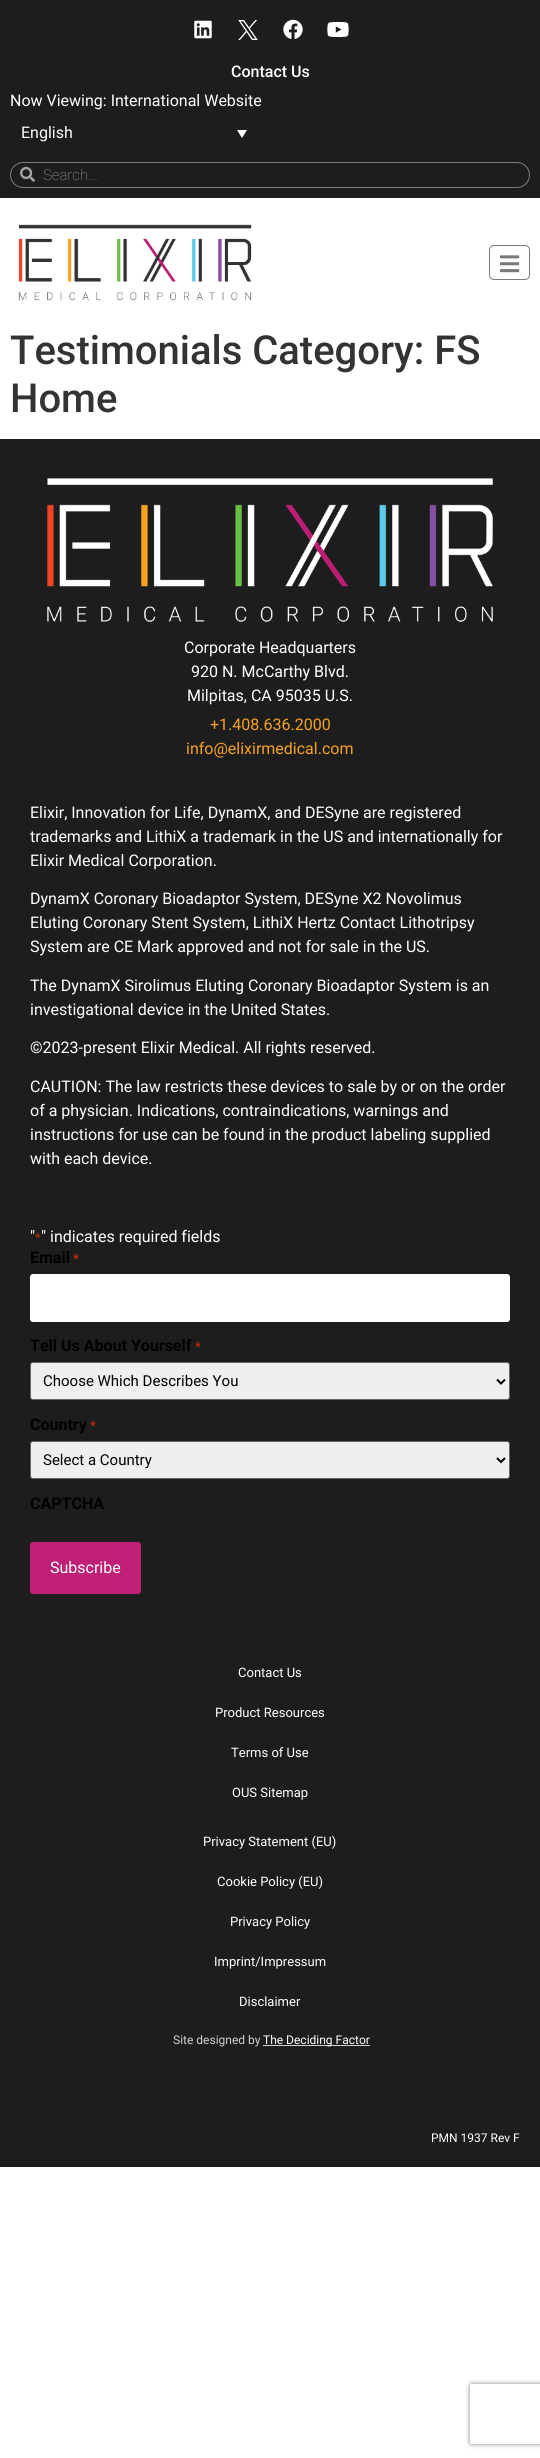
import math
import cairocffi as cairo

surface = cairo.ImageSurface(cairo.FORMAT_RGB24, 540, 2458)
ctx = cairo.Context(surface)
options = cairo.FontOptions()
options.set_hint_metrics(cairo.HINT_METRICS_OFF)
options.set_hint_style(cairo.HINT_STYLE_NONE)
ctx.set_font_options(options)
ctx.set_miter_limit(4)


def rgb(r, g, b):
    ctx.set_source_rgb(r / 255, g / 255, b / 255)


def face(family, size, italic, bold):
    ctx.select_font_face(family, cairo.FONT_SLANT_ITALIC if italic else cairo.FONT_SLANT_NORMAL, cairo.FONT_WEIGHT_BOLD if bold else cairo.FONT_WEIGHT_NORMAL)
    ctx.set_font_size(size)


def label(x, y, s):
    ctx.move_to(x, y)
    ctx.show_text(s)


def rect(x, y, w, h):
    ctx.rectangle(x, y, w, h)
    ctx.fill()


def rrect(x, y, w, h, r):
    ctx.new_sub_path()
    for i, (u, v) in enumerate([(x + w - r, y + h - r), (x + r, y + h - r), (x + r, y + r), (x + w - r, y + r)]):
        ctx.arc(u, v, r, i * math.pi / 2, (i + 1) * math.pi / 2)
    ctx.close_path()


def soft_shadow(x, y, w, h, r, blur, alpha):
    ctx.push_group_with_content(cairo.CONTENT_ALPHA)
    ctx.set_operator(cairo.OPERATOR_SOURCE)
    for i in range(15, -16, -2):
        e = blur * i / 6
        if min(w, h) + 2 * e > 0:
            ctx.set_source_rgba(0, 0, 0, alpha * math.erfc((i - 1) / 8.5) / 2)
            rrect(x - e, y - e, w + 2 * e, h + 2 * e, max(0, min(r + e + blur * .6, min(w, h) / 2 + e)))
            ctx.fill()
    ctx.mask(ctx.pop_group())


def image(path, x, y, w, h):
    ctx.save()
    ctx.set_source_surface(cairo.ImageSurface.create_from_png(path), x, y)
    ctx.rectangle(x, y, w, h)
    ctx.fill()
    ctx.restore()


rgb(255, 255, 255)
ctx.paint()
rgb(29, 29, 30)
rect(0, 0, 540, 198)
image('image0.png', 194, 20, 18, 19)
image('image1.png', 238, 20, 20, 20)
image('image2.png', 283, 19, 20, 20)
image('image3.png', 327, 22, 22, 15)
face('Roboto Medium', 16, 0, 0)
rgb(255, 255, 255)
label(231, 77, 'Contact Us')
face('Roboto', 16, 0, 0)
label(10, 106, 'Now Viewing: International Website')
label(21, 138, 'English')
ctx.new_path()
ctx.move_to(237, 130)
ctx.line_to(247, 130)
ctx.line_to(242, 138)
ctx.close_path()
ctx.fill()
rrect(10.5, 162.5, 519, 25, 12.5)
rgb(124, 124, 125)
ctx.set_line_width(1)
ctx.stroke()
image('image4.png', 20, 166, 15, 16)
face('Roboto Thin', 15, 0, 0)
rgb(165, 165, 165)
label(43, 180, 'Search...')
image('image5.png', 18, 224, 234, 77)
rrect(489.5, 245.5, 40, 34, 4.5)
rgb(122, 122, 122)
ctx.stroke()
image('image6.png', 500, 255, 20, 18)
face('Roboto Medium', 40, 0, 0)
rgb(51, 51, 51)
label(10, 364, 'Testimonials Category: FS')
label(10, 412, 'Home')
rgb(29, 29, 30)
rect(0, 439, 540, 1728)
image('image7.png', 47, 478, 446, 144)
face('Roboto', 16, 0, 0)
rgb(255, 255, 255)
label(184, 653, 'Corporate Headquarters')
label(191, 677, '920 N. McCarthy Blvd.')
label(187, 701, 'Milpitas, CA 95035 U.S.')
rgb(246, 162, 33)
label(210, 730, '+1.408.636.2000')
label(186, 754, 'info@elixirmedical.com')
rgb(255, 255, 255)
label(30, 818, 'Elixir, Innovation for Life, DynamX, and DESyne are registered')
label(30, 842, 'trademarks and LithiX a trademark in the US and internationally for')
label(30, 866, 'Elixir Medical Corporation.')
label(30, 904, 'DynamX Coronary Bioadaptor System, DESyne X2 Novolimus')
label(30, 928, 'Eluting Coronary Stent System, LithiX Hertz Contact Lithotripsy')
label(30, 952, 'System are CE Mark approved and not for sale in the US.')
label(30, 991, 'The DynamX Sirolimus Eluting Coronary Bioadaptor System is an')
label(30, 1015, 'investigational device in the United States.')
label(30, 1053, '©2023-present Elixir Medical. All rights reserved.')
label(30, 1092, 'CAUTION: The law restricts these devices to sale by or on the order')
label(30, 1116, 'of a physician. Indications, contraindications, warnings and')
label(30, 1140, 'instructions for use can be found in the product labeling supplied')
label(30, 1164, 'with each device.')
label(30, 1242, '"')
face('Roboto', 13, 0, 0)
rgb(192, 43, 10)
label(35, 1242, '*')
face('Roboto', 16, 0, 0)
rgb(255, 255, 255)
label(41, 1242, '" indicates required fields')
face('Roboto', 16, 0, 1)
rgb(0, 0, 0)
label(30, 1263, 'Email')
face('Roboto', 13, 0, 1)
rgb(192, 43, 10)
label(73, 1263, '*')
rgb(255, 255, 255)
rrect(30.5, 1274.5, 479, 47, 2.5)
ctx.fill_preserve()
ctx.stroke()
face('Roboto', 16, 0, 1)
rgb(0, 0, 0)
label(30, 1351, 'Tell Us About Yourself')
face('Roboto', 13, 0, 1)
rgb(192, 43, 10)
label(195, 1351, '*')
rgb(239, 239, 239)
rrect(30.5, 1362.5, 479, 37, 2.5)
ctx.fill_preserve()
rgb(102, 102, 102)
ctx.stroke()
ctx.new_path()
ctx.move_to(497, 1379.5)
ctx.line_to(501, 1383.5)
ctx.line_to(505, 1379.5)
rgb(0, 0, 0)
ctx.set_line_width(2)
ctx.stroke()
face('Roboto', 15, 0, 0)
label(43, 1386, 'Choose Which Describes You')
face('Roboto', 16, 0, 1)
label(30, 1430, 'Country')
face('Roboto', 13, 0, 1)
rgb(192, 43, 10)
label(90, 1430, '*')
rgb(239, 239, 239)
rrect(30.5, 1441.5, 479, 37, 2.5)
ctx.fill_preserve()
rgb(102, 102, 102)
ctx.set_line_width(1)
ctx.stroke()
ctx.new_path()
ctx.move_to(497, 1458)
ctx.line_to(501, 1462)
ctx.line_to(505, 1458)
rgb(0, 0, 0)
ctx.set_line_width(2)
ctx.stroke()
face('Roboto', 15, 0, 0)
label(43, 1465, 'Select a Country')
face('Roboto', 16, 0, 1)
label(30, 1509, 'CAPTCHA')
ctx.save()
ctx.set_fill_rule(cairo.FILL_RULE_EVEN_ODD)
ctx.new_path()
ctx.move_to(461, 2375)
ctx.line_to(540, 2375)
ctx.line_to(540, 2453)
ctx.line_to(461, 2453)
ctx.close_path()
ctx.move_to(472, 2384)
ctx.line_to(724, 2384)
ctx.curve_to(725, 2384, 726, 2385, 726, 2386)
ctx.line_to(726, 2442)
ctx.curve_to(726, 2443, 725, 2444, 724, 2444)
ctx.line_to(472, 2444)
ctx.curve_to(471, 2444, 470, 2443, 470, 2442)
ctx.line_to(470, 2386)
ctx.curve_to(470, 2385, 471, 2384, 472, 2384)
ctx.close_path()
ctx.clip()
rgb(128, 128, 128)
soft_shadow(470, 2384, 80, 60, 2, 2.5, 1)
ctx.restore()
rgb(192, 31, 118)
rrect(30, 1542, 111, 52, 3)
ctx.fill()
face('Roboto', 16, 0, 0)
rgb(255, 255, 255)
label(50, 1573, 'Subscribe')
face('Roboto', 13, 0, 0)
label(238, 1677, 'Contact Us')
label(215, 1717, 'Product Resources')
label(231, 1757, 'Terms of Use')
label(232, 1797, 'OUS Sitemap')
label(203, 1846, 'Privacy Statement (EU)')
label(217, 1886, 'Cookie Policy (EU)')
label(230, 1926, 'Privacy Policy')
label(214, 1966, 'Imprint/Impressum')
label(239, 2006, 'Disclaimer')
face('Roboto', 12, 0, 0)
rgb(209, 209, 209)
label(173, 2044, 'Site designed by')
rect(263, 2045, 107, 1)
rgb(255, 255, 255)
label(263, 2044, 'The Deciding Factor')
label(431, 2142, 'PMN 1937 Rev F')
surface.write_to_png('render.png')
